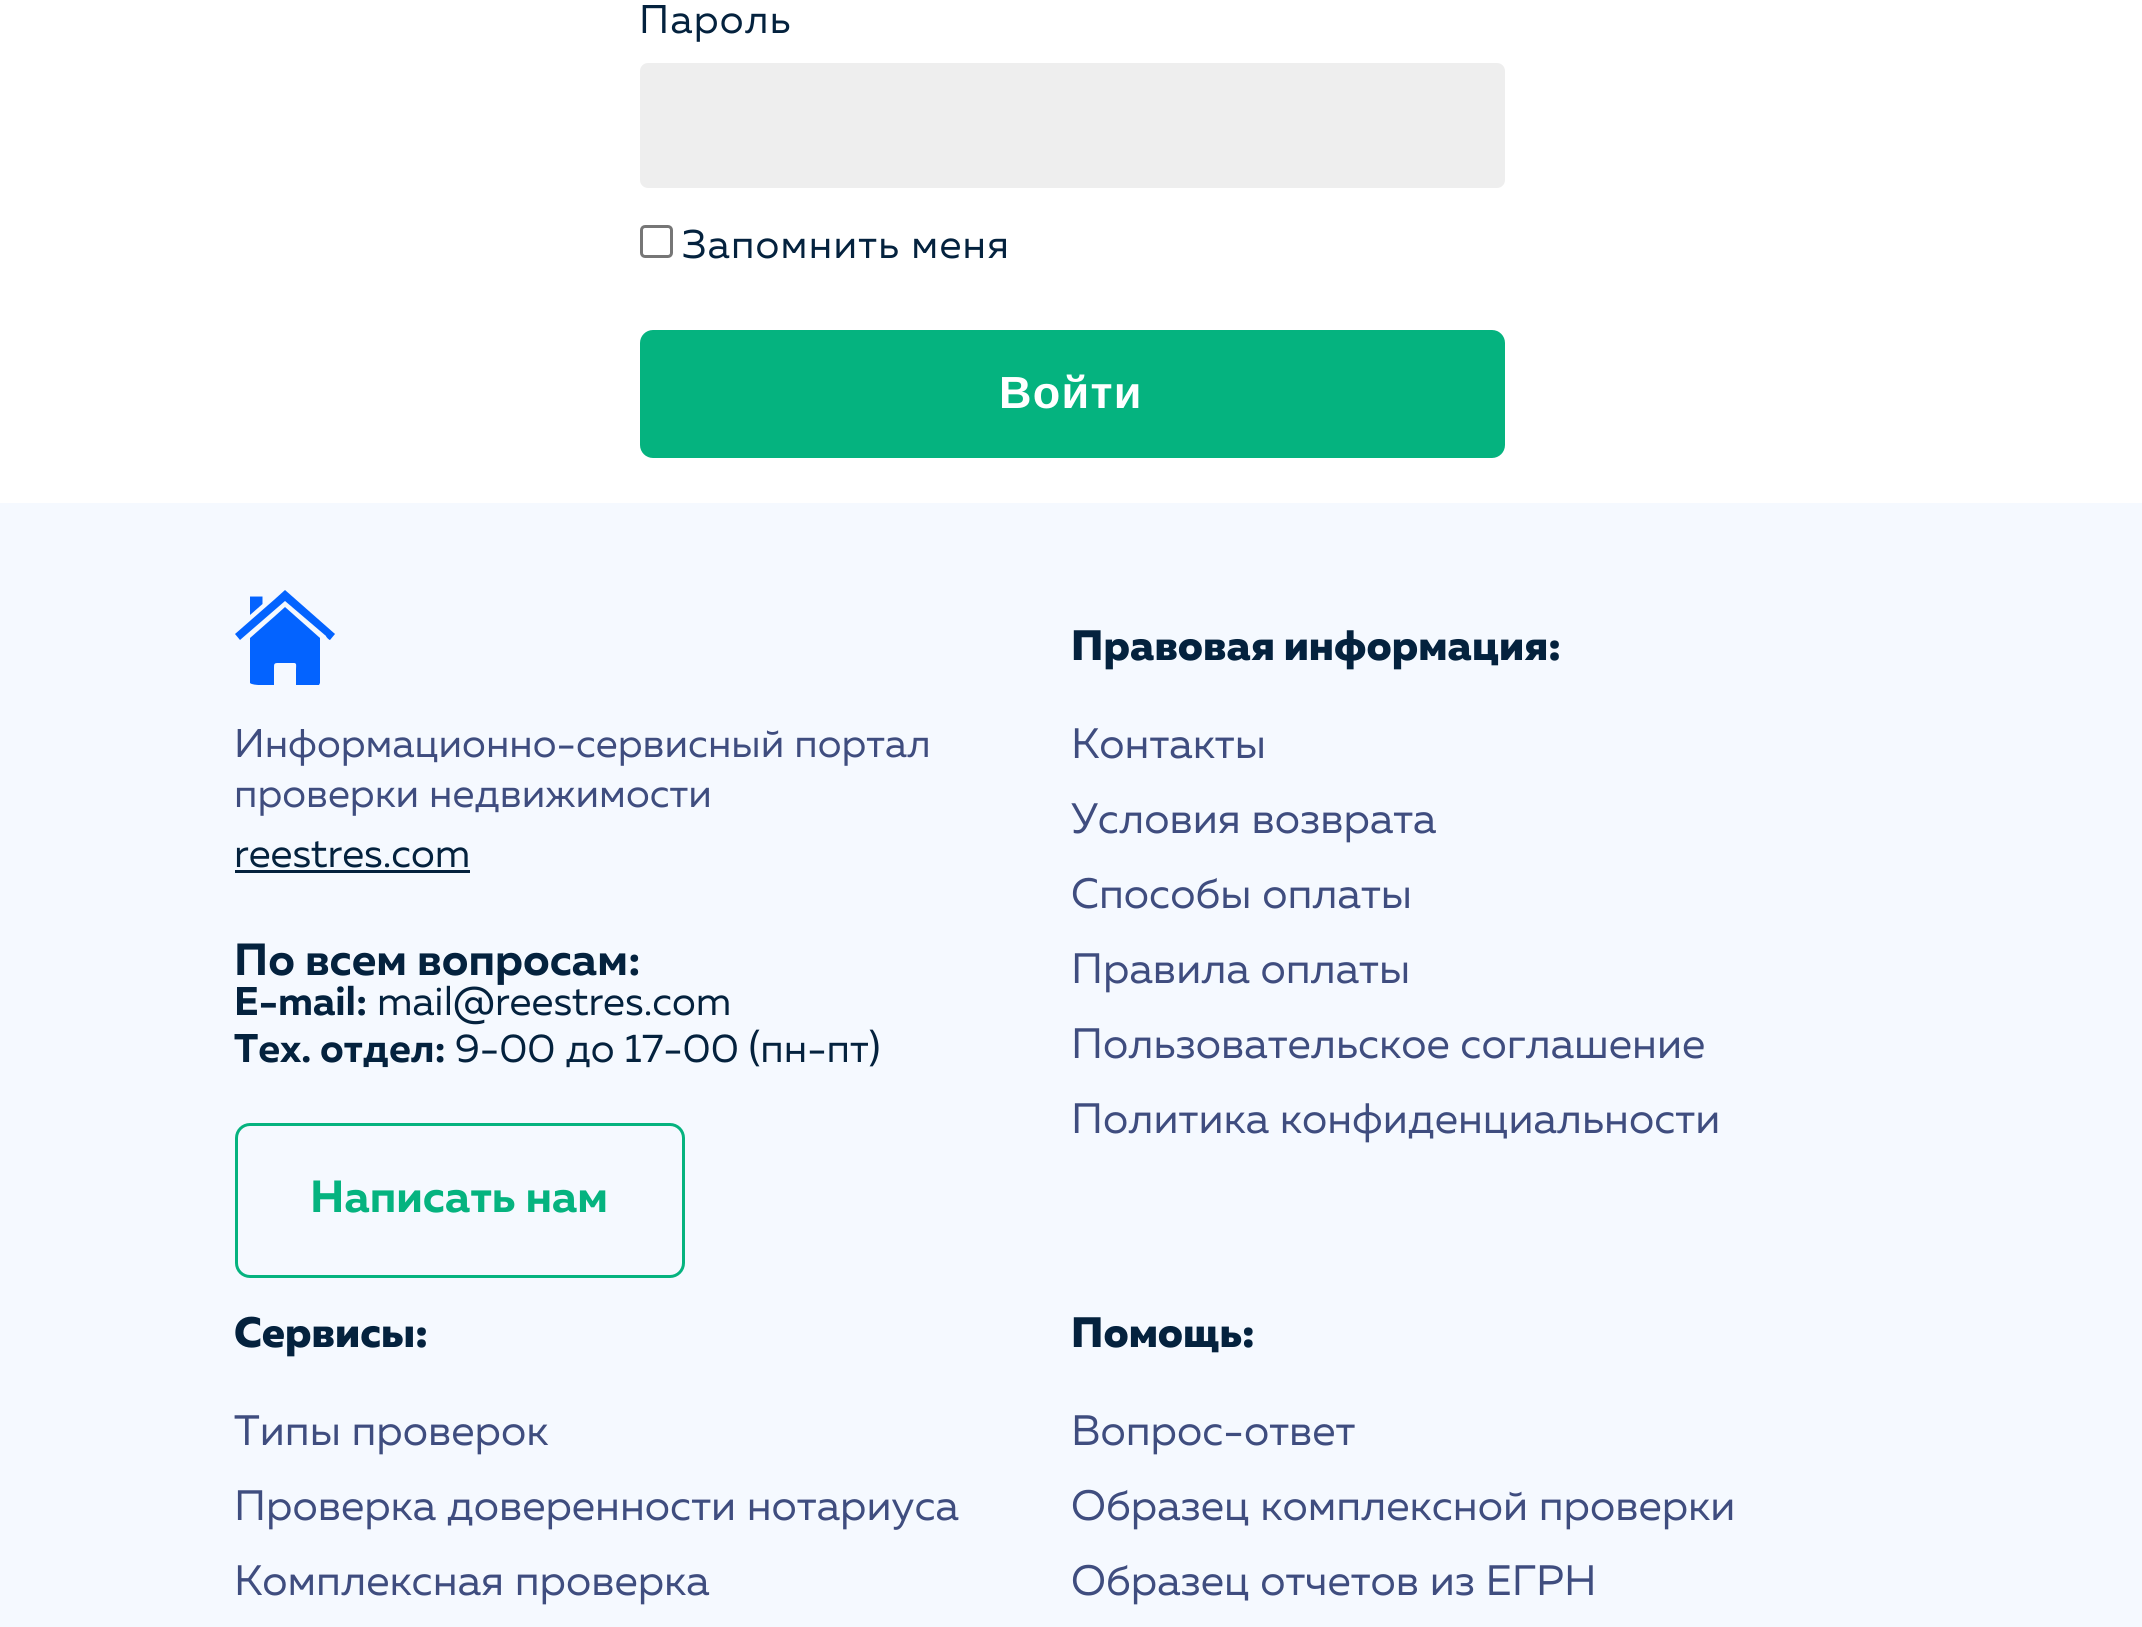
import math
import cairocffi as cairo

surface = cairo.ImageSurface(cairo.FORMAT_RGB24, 2142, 1627)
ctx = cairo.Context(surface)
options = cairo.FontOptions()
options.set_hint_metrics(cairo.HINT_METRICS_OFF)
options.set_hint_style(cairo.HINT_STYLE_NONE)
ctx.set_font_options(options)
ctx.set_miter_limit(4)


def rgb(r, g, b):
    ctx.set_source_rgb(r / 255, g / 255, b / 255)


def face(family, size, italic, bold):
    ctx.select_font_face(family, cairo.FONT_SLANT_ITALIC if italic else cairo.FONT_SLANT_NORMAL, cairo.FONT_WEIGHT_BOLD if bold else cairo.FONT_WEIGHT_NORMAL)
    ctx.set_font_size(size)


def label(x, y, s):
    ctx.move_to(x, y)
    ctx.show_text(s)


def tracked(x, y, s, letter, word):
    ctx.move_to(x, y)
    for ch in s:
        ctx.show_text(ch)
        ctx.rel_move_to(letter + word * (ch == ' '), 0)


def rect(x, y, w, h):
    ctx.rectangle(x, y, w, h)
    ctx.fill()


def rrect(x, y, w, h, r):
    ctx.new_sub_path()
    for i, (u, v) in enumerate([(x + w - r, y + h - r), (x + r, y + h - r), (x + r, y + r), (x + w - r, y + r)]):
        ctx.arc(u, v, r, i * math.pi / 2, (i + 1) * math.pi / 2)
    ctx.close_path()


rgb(255, 255, 255)
ctx.paint()
face('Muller', 40, 0, 0)
rgb(4, 34, 62)
tracked(639, 33, 'Пароль', 1.25, 0)
rgb(238, 238, 238)
rrect(640, 63, 865, 125, 8)
ctx.fill()
rrect(641.5, 226.5, 30, 30, 3.5)
rgb(118, 118, 118)
ctx.set_line_width(3)
ctx.stroke()
rgb(4, 34, 62)
tracked(682, 258, 'Запомнить меня', 1.25, 0)
rgb(5, 179, 127)
rrect(640, 330, 865, 128, 13)
ctx.fill()
face('Liberation Sans', 45, 0, 1)
rgb(255, 255, 255)
tracked(999, 408, 'Войти', 1.25, 0)
rgb(245, 249, 255)
rect(0, 503, 2142, 1124)
rgb(3, 99, 255)
ctx.new_path()
ctx.move_to(275, 599)
ctx.line_to(235, 634)
ctx.line_to(240, 640)
ctx.line_to(285, 601)
ctx.line_to(326, 636)
ctx.curve_to(326, 637, 329, 640, 330, 640)
ctx.line_to(335, 634)
ctx.line_to(285, 590)
ctx.close_path()
ctx.fill()
ctx.new_path()
ctx.move_to(250, 605.5)
ctx.line_to(250, 615)
ctx.line_to(262.5, 604)
ctx.line_to(262.5, 596.5)
ctx.line_to(250, 596.5)
ctx.close_path()
ctx.fill()
ctx.save()
ctx.rectangle(235, 590, 100, 95)
ctx.clip()
ctx.new_path()
ctx.move_to(275, 616)
ctx.line_to(250, 638)
ctx.line_to(250, 683)
ctx.curve_to(253, 686, 269, 685, 274, 685)
ctx.line_to(274, 668)
ctx.curve_to(274, 664, 274, 663, 278, 663)
ctx.line_to(294, 663)
ctx.curve_to(297, 663, 296, 666, 296, 669)
ctx.line_to(296, 685)
ctx.line_to(319, 685)
ctx.line_to(320, 683)
ctx.line_to(320, 638)
ctx.line_to(285, 607)
ctx.close_path()
ctx.fill()
ctx.restore()
face('Muller', 40, 0, 0)
rgb(63, 77, 127)
label(234, 757, 'Информационно-сервисный портал')
label(234, 807, 'проверки недвижимости')
rgb(4, 34, 62)
label(234, 867, 'reestres.com')
rect(235, 870, 235, 3)
face('Muller', 45, 0, 1)
label(234, 975, 'По всем вопросам:')
face('Muller', 40, 0, 1)
label(234, 1015, 'E-mail:')
face('Muller', 40, 0, 0)
label(377, 1015, 'mail@reestres.com')
face('Muller', 40, 0, 1)
label(234, 1062, 'Тех. отдел:')
face('Muller', 40, 0, 0)
label(455, 1062, '9-00 до 17-00 (пн-пт)')
rrect(236.5, 1124.5, 447, 152, 13.5)
rgb(5, 179, 127)
ctx.stroke()
face('Muller', 45, 0, 1)
label(310, 1212, 'Написать нам')
face('Muller ExtraBold', 42.5, 0, 0)
rgb(4, 34, 62)
label(1071, 660, 'Правовая информация:')
face('Muller', 42.5, 0, 0)
rgb(63, 77, 127)
label(1071, 758, 'Контакты')
label(1071, 833, 'Условия возврата')
label(1071, 908, 'Способы оплаты')
label(1071, 983, 'Правила оплаты')
label(1071, 1058, 'Пользовательское соглашение')
label(1071, 1133, 'Политика конфиденциальности')
face('Muller ExtraBold', 42.5, 0, 0)
rgb(4, 34, 62)
label(234, 1347, 'Сервисы:')
face('Muller', 42.5, 0, 0)
rgb(63, 77, 127)
label(234, 1445, 'Типы проверок')
label(234, 1520, 'Проверка доверенности нотариуса')
label(234, 1595, 'Комплексная проверка')
face('Muller ExtraBold', 42.5, 0, 0)
rgb(4, 34, 62)
label(1071, 1347, 'Помощь:')
face('Muller', 42.5, 0, 0)
rgb(63, 77, 127)
label(1071, 1445, 'Вопрос-ответ')
label(1071, 1520, 'Образец комплексной проверки')
label(1071, 1595, 'Образец отчетов из ЕГРН')
surface.write_to_png('render.png')
